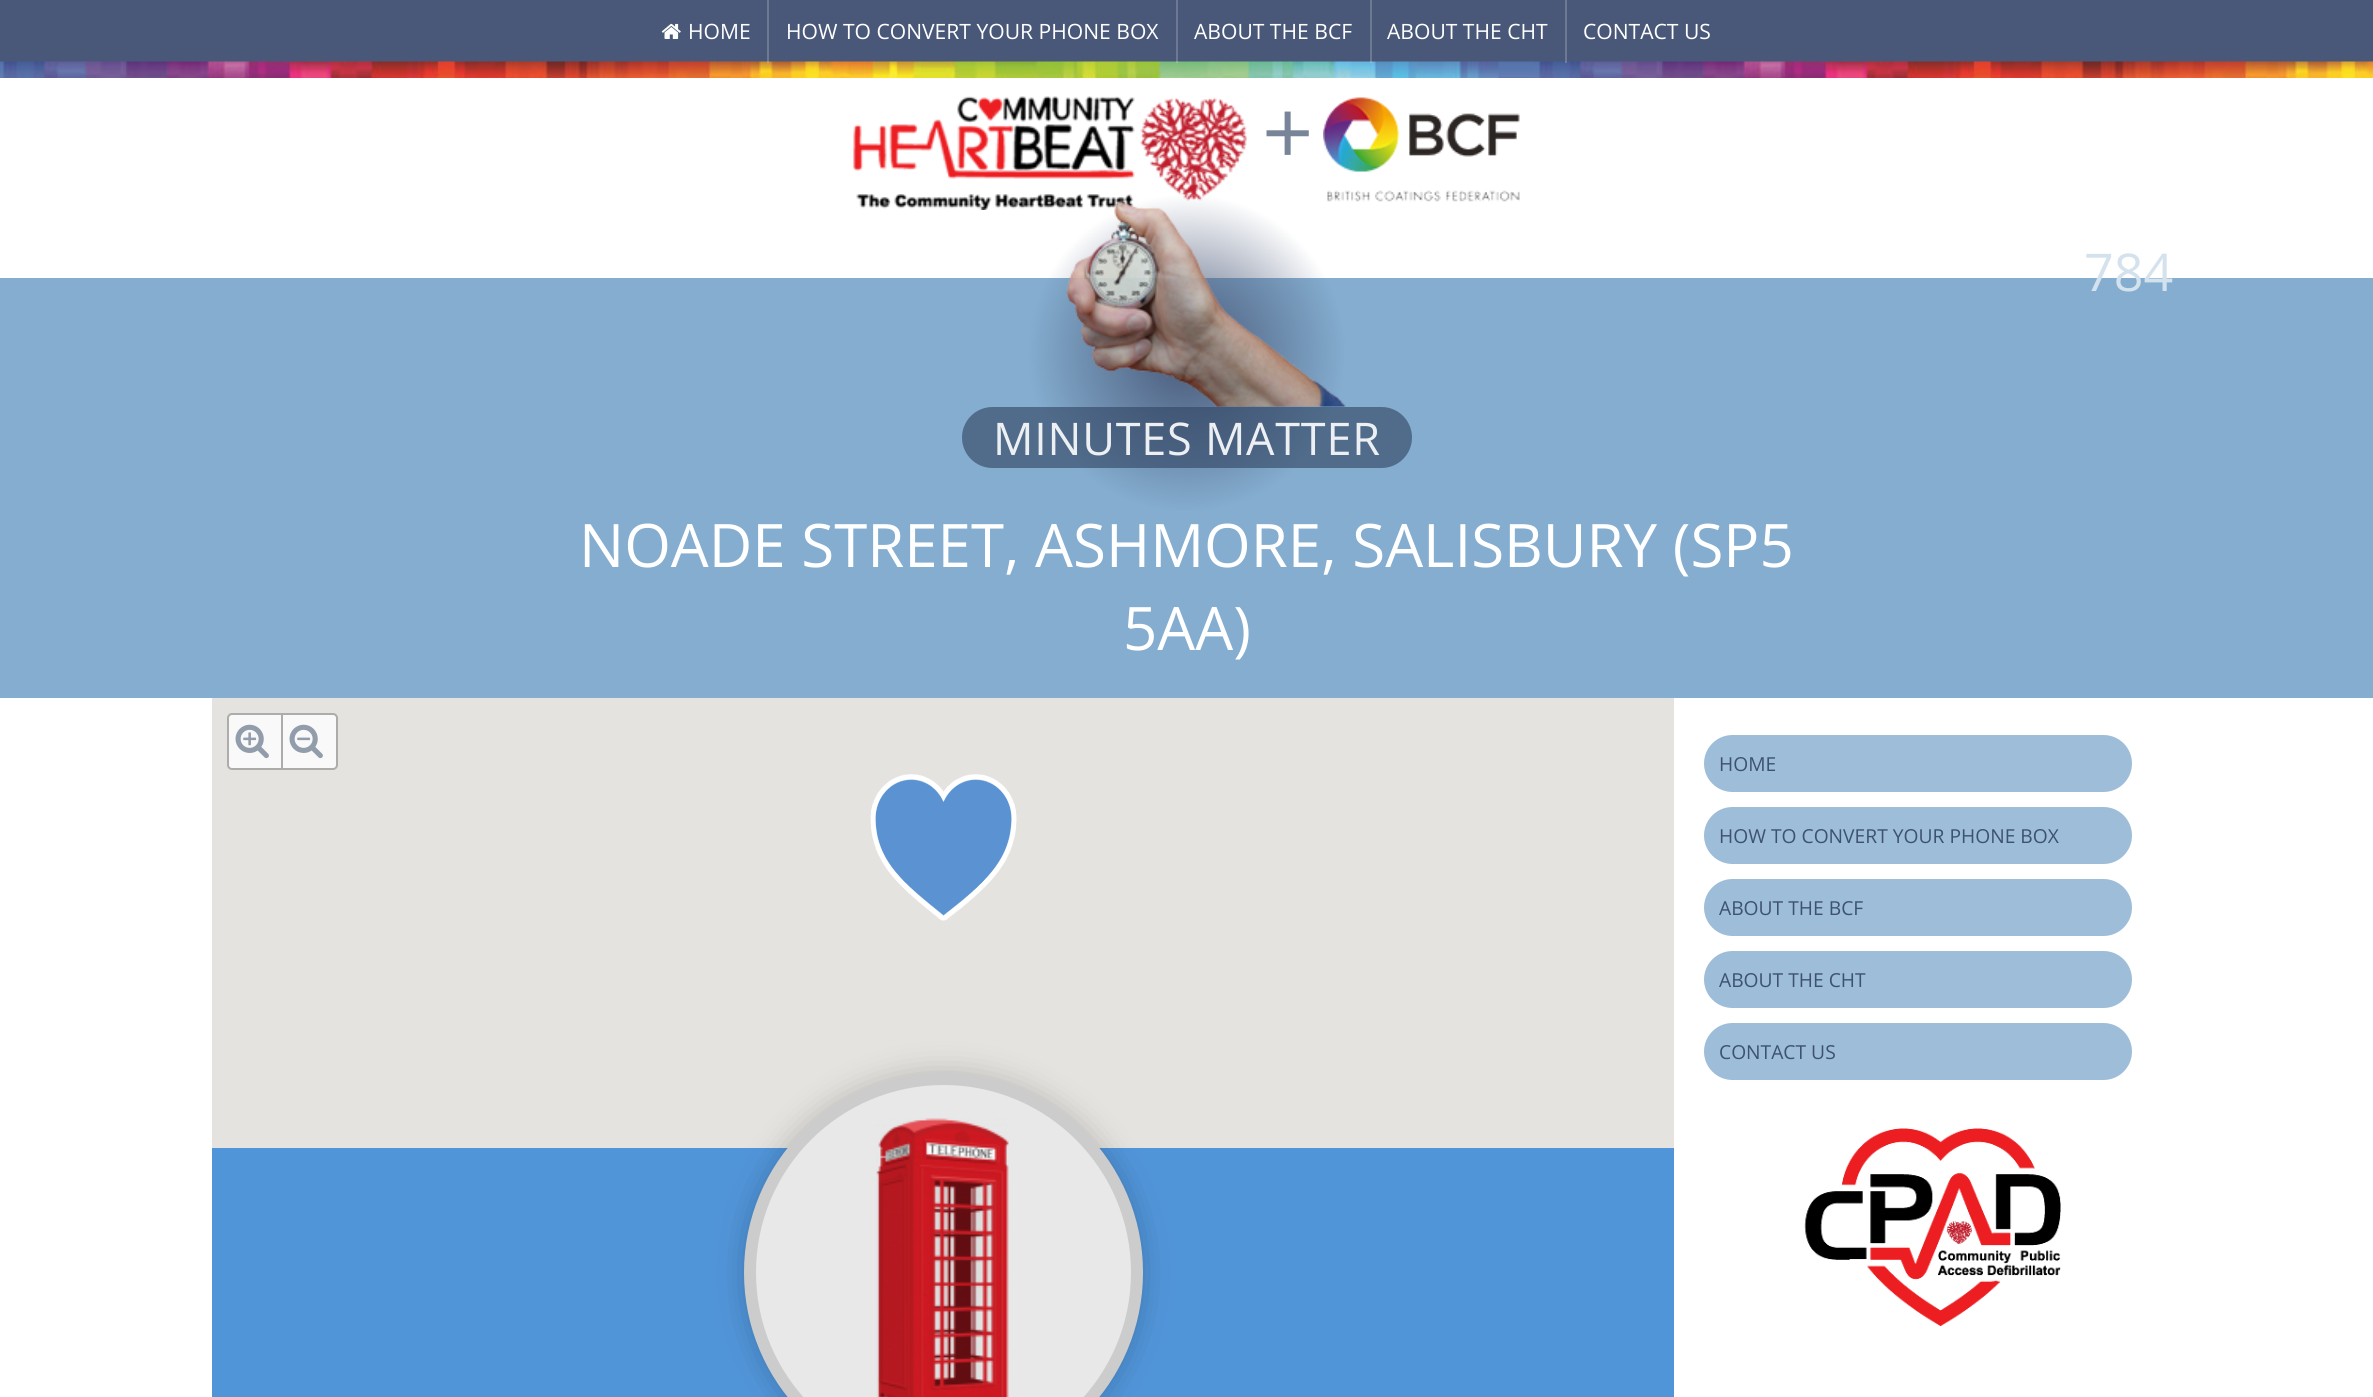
import math
import cairocffi as cairo

surface = cairo.ImageSurface(cairo.FORMAT_RGB24, 2373, 1397)
ctx = cairo.Context(surface)
options = cairo.FontOptions()
options.set_hint_metrics(cairo.HINT_METRICS_OFF)
options.set_hint_style(cairo.HINT_STYLE_NONE)
ctx.set_font_options(options)
ctx.set_miter_limit(4)


def rgb(r, g, b):
    ctx.set_source_rgb(r / 255, g / 255, b / 255)


def face(family, size, italic, bold):
    ctx.select_font_face(family, cairo.FONT_SLANT_ITALIC if italic else cairo.FONT_SLANT_NORMAL, cairo.FONT_WEIGHT_BOLD if bold else cairo.FONT_WEIGHT_NORMAL)
    ctx.set_font_size(size)


def label(x, y, s):
    ctx.move_to(x, y)
    ctx.show_text(s)


def tracked(x, y, s, letter, word):
    ctx.move_to(x, y)
    for ch in s:
        ctx.show_text(ch)
        ctx.rel_move_to(letter + word * (ch == ' '), 0)


def rect(x, y, w, h):
    ctx.rectangle(x, y, w, h)
    ctx.fill()


def rrect(x, y, w, h, r):
    ctx.new_sub_path()
    for i, (u, v) in enumerate([(x + w - r, y + h - r), (x + r, y + h - r), (x + r, y + r), (x + w - r, y + r)]):
        ctx.arc(u, v, r, i * math.pi / 2, (i + 1) * math.pi / 2)
    ctx.close_path()


def soft_shadow(x, y, w, h, r, blur, alpha):
    ctx.push_group_with_content(cairo.CONTENT_ALPHA)
    ctx.set_operator(cairo.OPERATOR_SOURCE)
    for i in range(15, -16, -2):
        e = blur * i / 6
        if min(w, h) + 2 * e > 0:
            ctx.set_source_rgba(0, 0, 0, alpha * math.erfc((i - 1) / 8.5) / 2)
            rrect(x - e, y - e, w + 2 * e, h + 2 * e, max(0, min(r + e + blur * .6, min(w, h) / 2 + e)))
            ctx.fill()
    ctx.mask(ctx.pop_group())


def image(path, x, y, w, h):
    ctx.save()
    ctx.set_source_surface(cairo.ImageSurface.create_from_png(path), x, y)
    ctx.rectangle(x, y, w, h)
    ctx.fill()
    ctx.restore()


rgb(255, 255, 255)
ctx.paint()
rgb(73, 88, 120)
rect(0, 0, 2373, 62)
image('image0.png', 0, 61, 2373, 17)
ctx.set_source_rgba(1, 1, 1, 0.2)
rect(767, 0, 2, 63)
image('image1.png', 661, 23, 20, 16)
face('Open Sans', 21.1, 0, 0)
rgb(255, 255, 255)
label(688, 39, 'HOME')
ctx.set_source_rgba(1, 1, 1, 0.2)
rect(1176, 0, 2, 63)
rgb(255, 255, 255)
label(786, 39, 'HOW TO CONVERT YOUR PHONE BOX')
ctx.set_source_rgba(1, 1, 1, 0.2)
rect(1370, 0, 2, 63)
rgb(255, 255, 255)
label(1194, 39, 'ABOUT THE BCF')
ctx.set_source_rgba(1, 1, 1, 0.2)
rect(1565, 0, 2, 63)
rgb(255, 255, 255)
label(1387, 39, 'ABOUT THE CHT')
label(1583, 39, 'CONTACT US')
rgb(132, 173, 207)
rect(0, 278, 2373, 420)
gradient = cairo.RadialGradient(1187, 353, 0, 1187, 353, 159)
gradient.add_color_stop_rgba(0, 0.286, 0.345, 0.471, 1)
gradient.add_color_stop_rgba(1, 0.286, 0.345, 0.471, 0)
ctx.set_source(gradient)
ctx.new_path()
ctx.arc(1186.5, 352.5, 159, 0, 2 * math.pi)
ctx.fill()
image('image2.png', 853, 96, 394, 114)
image('image3.png', 1323, 97, 197, 105)
face('Open Sans', 90, 0, 0)
rgb(120, 133, 153)
label(1262, 165, '+')
face('Open Sans', 52, 0, 0)
rgb(212, 226, 238)
label(2084, 291, '784')
image('image4.png', 1066, 200, 280, 207)
ctx.set_source_rgba(0.2, 0.275, 0.392, 0.63)
rrect(962, 407, 450, 61, 30.5)
ctx.fill()
face('Open Sans', 45, 0, 0)
rgb(237, 240, 243)
tracked(993, 455, 'MINUTES MATTER', 0.75, 0)
face('Open Sans', 60, 0, 0)
rgb(255, 255, 255)
label(579, 567, 'NOADE STREET, ASHMORE, SALISBURY (SP5')
label(1123, 650, '5AA)')
rgb(229, 227, 223)
rect(212, 698, 1462, 450)
image('image5.png', 870, 774, 147, 147)
rgb(250, 249, 249)
rrect(228, 714, 109, 55, 4)
ctx.fill_preserve()
rgb(172, 172, 171)
ctx.stroke()
image('image6.png', 235, 724, 34, 35)
rect(281, 714, 2, 54)
image('image7.png', 289, 724, 34, 35)
rgb(81, 149, 217)
rect(212, 1148, 1462, 249)
rgb(0, 0, 0)
soft_shadow(744, 1073, 399, 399, 199.5, 15, 0.2)
rgb(232, 232, 232)
ctx.arc(943.5, 1272.5, 193.5, 0, 2 * math.pi)
ctx.fill_preserve()
rgb(204, 204, 204)
ctx.set_line_width(12)
ctx.stroke()
image('image8.png', 876, 1118, 133, 279)
rgb(157, 189, 217)
rrect(1704, 735, 428, 57, 28.5)
ctx.fill()
face('Open Sans', 19.25, 0, 0)
rgb(61, 82, 113)
label(1719, 771, 'HOME')
rgb(157, 189, 217)
rrect(1704, 807, 428, 57, 28.5)
ctx.fill()
rgb(61, 82, 113)
label(1719, 843, 'HOW TO CONVERT YOUR PHONE BOX')
rgb(157, 189, 217)
rrect(1704, 879, 428, 57, 28.5)
ctx.fill()
rgb(61, 82, 113)
label(1719, 915, 'ABOUT THE BCF')
rgb(157, 189, 217)
rrect(1704, 951, 428, 57, 28.5)
ctx.fill()
rgb(61, 82, 113)
label(1719, 987, 'ABOUT THE CHT')
rgb(157, 189, 217)
rrect(1704, 1023, 428, 57, 28.5)
ctx.fill()
rgb(61, 82, 113)
label(1719, 1059, 'CONTACT US')
image('image9.png', 1804, 1128, 257, 198)
surface.write_to_png('render.png')
